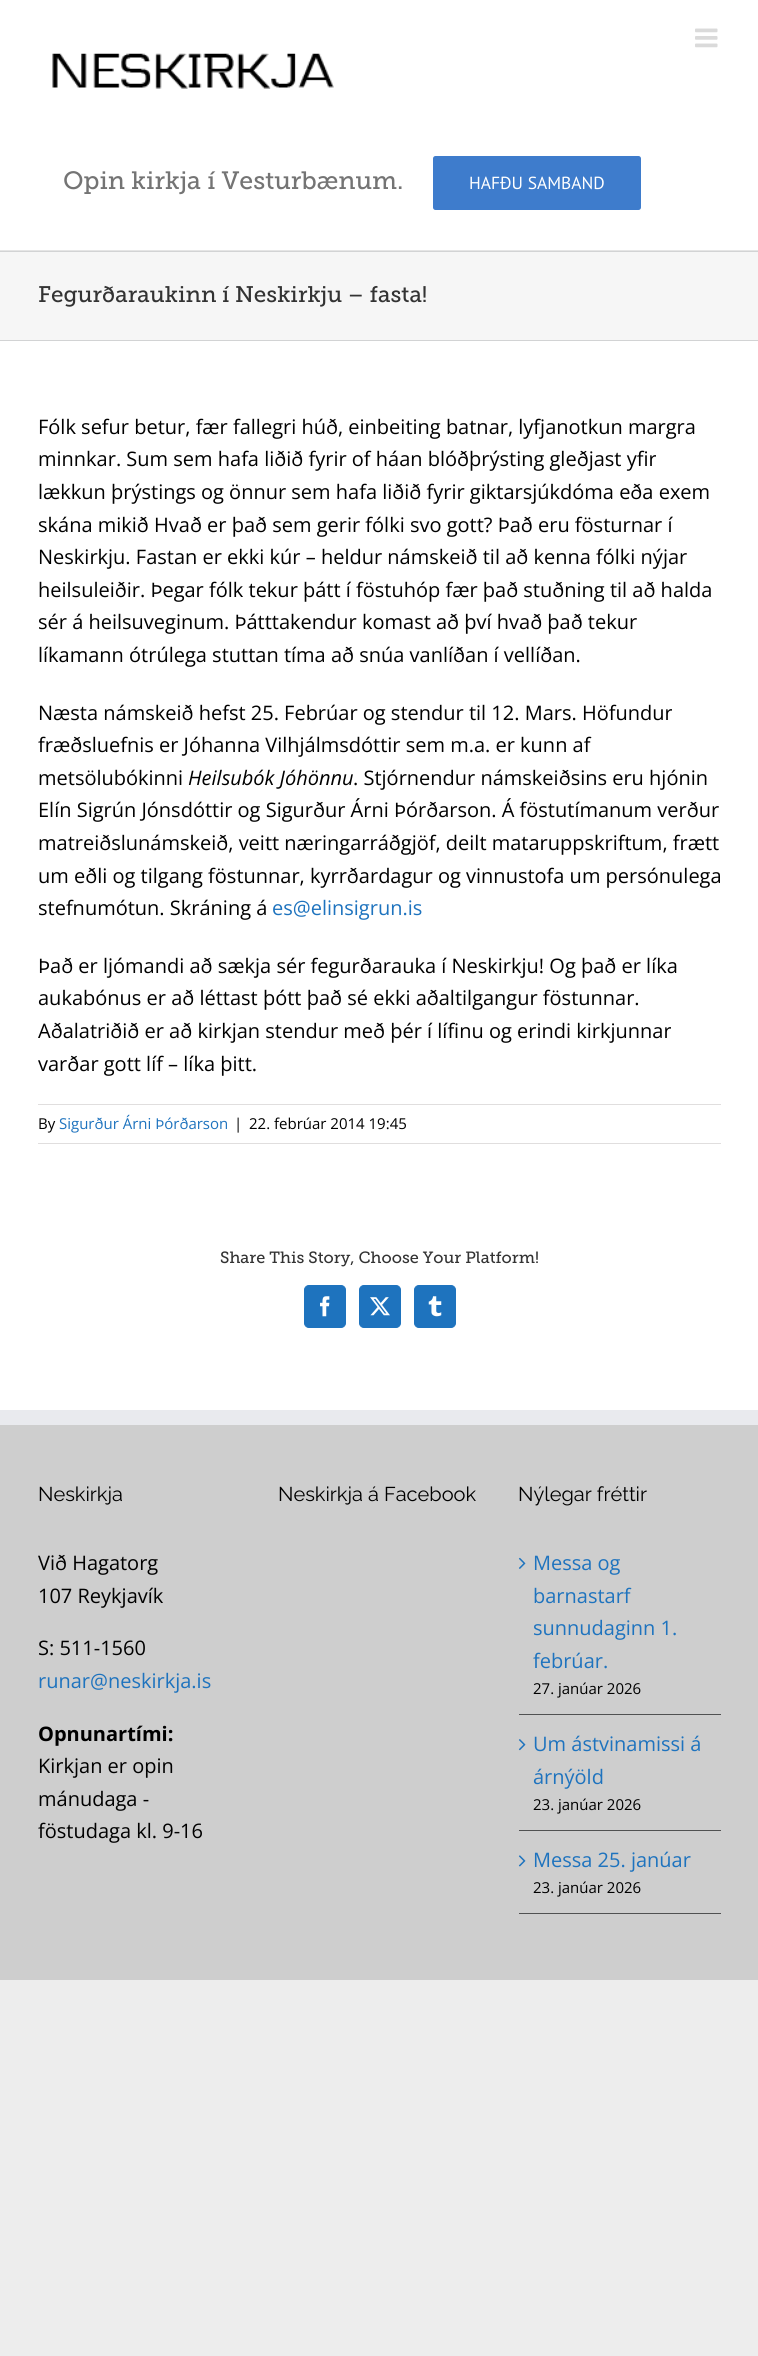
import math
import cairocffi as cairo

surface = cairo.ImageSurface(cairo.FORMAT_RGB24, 758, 2356)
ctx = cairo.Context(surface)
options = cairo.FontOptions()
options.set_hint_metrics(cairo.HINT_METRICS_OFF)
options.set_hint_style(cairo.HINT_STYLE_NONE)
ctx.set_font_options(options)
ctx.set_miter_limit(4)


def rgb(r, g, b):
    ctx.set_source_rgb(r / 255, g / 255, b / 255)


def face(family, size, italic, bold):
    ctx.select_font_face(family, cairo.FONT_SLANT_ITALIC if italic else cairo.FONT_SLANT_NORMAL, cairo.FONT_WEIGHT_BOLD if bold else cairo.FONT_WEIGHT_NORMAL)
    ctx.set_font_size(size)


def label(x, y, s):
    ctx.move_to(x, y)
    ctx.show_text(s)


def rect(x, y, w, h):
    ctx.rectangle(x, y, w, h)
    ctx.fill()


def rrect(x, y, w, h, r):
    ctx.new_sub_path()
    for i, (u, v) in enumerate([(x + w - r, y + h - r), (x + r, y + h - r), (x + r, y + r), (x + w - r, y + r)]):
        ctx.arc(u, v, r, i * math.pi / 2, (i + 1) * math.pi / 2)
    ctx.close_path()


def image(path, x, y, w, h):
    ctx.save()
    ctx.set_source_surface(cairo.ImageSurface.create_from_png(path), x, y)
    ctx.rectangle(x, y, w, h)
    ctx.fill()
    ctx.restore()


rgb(237, 237, 237)
ctx.paint()
rgb(255, 255, 255)
rect(0, 0, 758, 250)
rgb(229, 229, 229)
rect(0, 250, 758, 1)
image('image0.png', 695, 28, 23, 20)
image('image1.png', 52, 53, 282, 36)
face('Museo Slab', 25, 0, 0)
rgb(116, 116, 116)
label(63, 189, 'Opin kirkja í Vesturbænum.')
rgb(62, 124, 204)
rrect(433, 156, 208, 54, 2.5)
ctx.fill()
face('PT Sans', 17.5, 0, 0)
rgb(255, 255, 255)
label(469, 189, 'HAFÐU SAMBAND')
rgb(246, 246, 246)
rect(0, 252, 758, 88)
rgb(210, 211, 212)
rect(0, 251, 758, 1)
rect(0, 340, 758, 1)
face('Museo Slab', 22.5, 0, 0)
rgb(51, 51, 51)
label(38, 302, 'Fegurðaraukinn í Neskirkju – fasta!')
rgb(255, 255, 255)
rect(0, 341, 758, 1069)
face('Open Sans', 20, 0, 0)
rgb(0, 0, 0)
label(38, 434, 'Fólk sefur betur, fær fallegri húð, einbeiting batnar, lyfjanotkun margra')
label(38, 466, 'minnkar. Sum sem hafa liðið fyrir of háan blóðþrýsting gleðjast yfir')
label(38, 499, 'lækkun þrýstings og önnur sem hafa liðið fyrir giktarsjúkdóma eða exem')
label(38, 532, 'skána mikið Hvað er það sem gerir fólki svo gott? Það eru fösturnar í')
label(38, 564, 'Neskirkju. Fastan er ekki kúr – heldur námskeið til að kenna fólki nýjar')
label(38, 597, 'heilsuleiðir. Þegar fólk tekur þátt í föstuhóp fær það stuðning til að halda')
label(38, 629, 'sér á heilsuveginum. Þátttakendur komast að því hvað það tekur')
label(38, 662, 'líkamann ótrúlega stuttan tíma að snúa vanlíðan í vellíðan.')
label(38, 720, 'Næsta námskeið hefst 25. Febrúar og stendur til 12. Mars. Höfundur')
label(38, 752, 'fræðsluefnis er Jóhanna Vilhjálmsdóttir sem m.a. er kunn af')
label(38, 785, 'metsölubókinni')
face('Open Sans', 20, 1, 0)
label(188, 785, 'Heilsubók Jóhönnu')
face('Open Sans', 20, 0, 0)
label(353, 785, '. Stjórnendur námskeiðsins eru hjónin')
label(38, 817, 'Elín Sigrún Jónsdóttir og Sigurður Árni Þórðarson. Á föstutímanum verður')
label(38, 850, 'matreiðslunámskeið, veitt næringarráðgjöf, deilt mataruppskriftum, frætt')
label(38, 883, 'um eðli og tilgang föstunnar, kyrrðardagur og vinnustofa um persónulega')
label(38, 915, 'stefnumótun. Skráning á')
rgb(30, 115, 190)
label(272, 915, 'es@elinsigrun.is')
rgb(0, 0, 0)
label(38, 973, 'Það er ljómandi að sækja sér fegurðarauka í Neskirkju! Og það er líka')
label(38, 1005, 'aukabónus er að léttast þótt það sé ekki aðaltilgangur föstunnar.')
label(38, 1038, 'Aðalatriðið er að kirkjan stendur með þér í lífinu og erindi kirkjunnar')
label(38, 1071, 'varðar gott líf – líka þitt.')
rgb(224, 222, 222)
rect(38, 1104, 683, 1)
rect(38, 1143, 683, 1)
face('Open Sans', 15, 0, 0)
rgb(0, 0, 0)
label(38, 1129, 'By')
rgb(30, 115, 190)
label(59, 1129, 'Sigurður Árni Þórðarson')
rgb(0, 0, 0)
label(234, 1129, '|')
label(249, 1129, '22. febrúar 2014 19:45')
face('Museo Slab', 16.25, 0, 0)
rgb(51, 51, 51)
label(220, 1263, 'Share This Story, Choose Your Platform!')
rgb(30, 115, 190)
rrect(304.5, 1285.5, 41, 42, 4.5)
ctx.fill_preserve()
ctx.set_line_width(1)
ctx.stroke()
image('image2.png', 320, 1296, 10, 21)
rrect(359.5, 1285.5, 41, 42, 4.5)
ctx.fill_preserve()
ctx.stroke()
image('image3.png', 370, 1297, 20, 19)
rrect(414.5, 1285.5, 41, 42, 4.5)
ctx.fill_preserve()
ctx.stroke()
image('image4.png', 428, 1296, 14, 21)
rgb(206, 206, 206)
rect(0, 1425, 758, 555)
rgb(233, 234, 238)
rect(0, 1410, 758, 15)
face('Raleway', 20, 0, 0)
rgb(0, 0, 0)
label(38, 1501, 'Neskirkja')
face('Open Sans', 20, 0, 0)
label(38, 1570, 'Við Hagatorg')
label(38, 1603, '107 Reykjavík')
label(38, 1655, 'S: 511-1560')
rgb(30, 115, 190)
label(38, 1688, 'runar@neskirkja.is')
face('Open Sans', 20, 0, 1)
rgb(0, 0, 0)
label(38, 1741, 'Opnunartími:')
face('Open Sans', 20, 0, 0)
label(38, 1773, 'Kirkjan er opin')
label(38, 1806, 'mánudaga -')
label(38, 1838, 'föstudaga kl. 9-16')
face('Raleway', 20, 0, 0)
label(278, 1501, 'Neskirkja á Facebook')
label(518, 1501, 'Nýlegar fréttir')
rgb(80, 81, 82)
rect(519, 1714, 202, 1)
image('image5.png', 518, 1557, 8, 12)
face('Open Sans', 20, 0, 0)
rgb(30, 115, 190)
label(533, 1570, 'Messa og')
label(533, 1603, 'barnastarf')
label(533, 1635, 'sunnudaginn 1.')
label(533, 1668, 'febrúar.')
face('Open Sans', 15, 0, 0)
rgb(0, 0, 0)
label(533, 1694, '27. janúar 2026')
rgb(80, 81, 82)
rect(519, 1830, 202, 1)
image('image6.png', 518, 1739, 8, 12)
face('Open Sans', 20, 0, 0)
rgb(30, 115, 190)
label(533, 1751, 'Um ástvinamissi á')
label(533, 1784, 'árnýöld')
face('Open Sans', 15, 0, 0)
rgb(0, 0, 0)
label(533, 1810, '23. janúar 2026')
rgb(80, 81, 82)
rect(519, 1913, 202, 1)
image('image7.png', 518, 1855, 8, 12)
face('Open Sans', 20, 0, 0)
rgb(30, 115, 190)
label(533, 1867, 'Messa 25. janúar')
face('Open Sans', 15, 0, 0)
rgb(0, 0, 0)
label(533, 1893, '23. janúar 2026')
surface.write_to_png('render.png')
